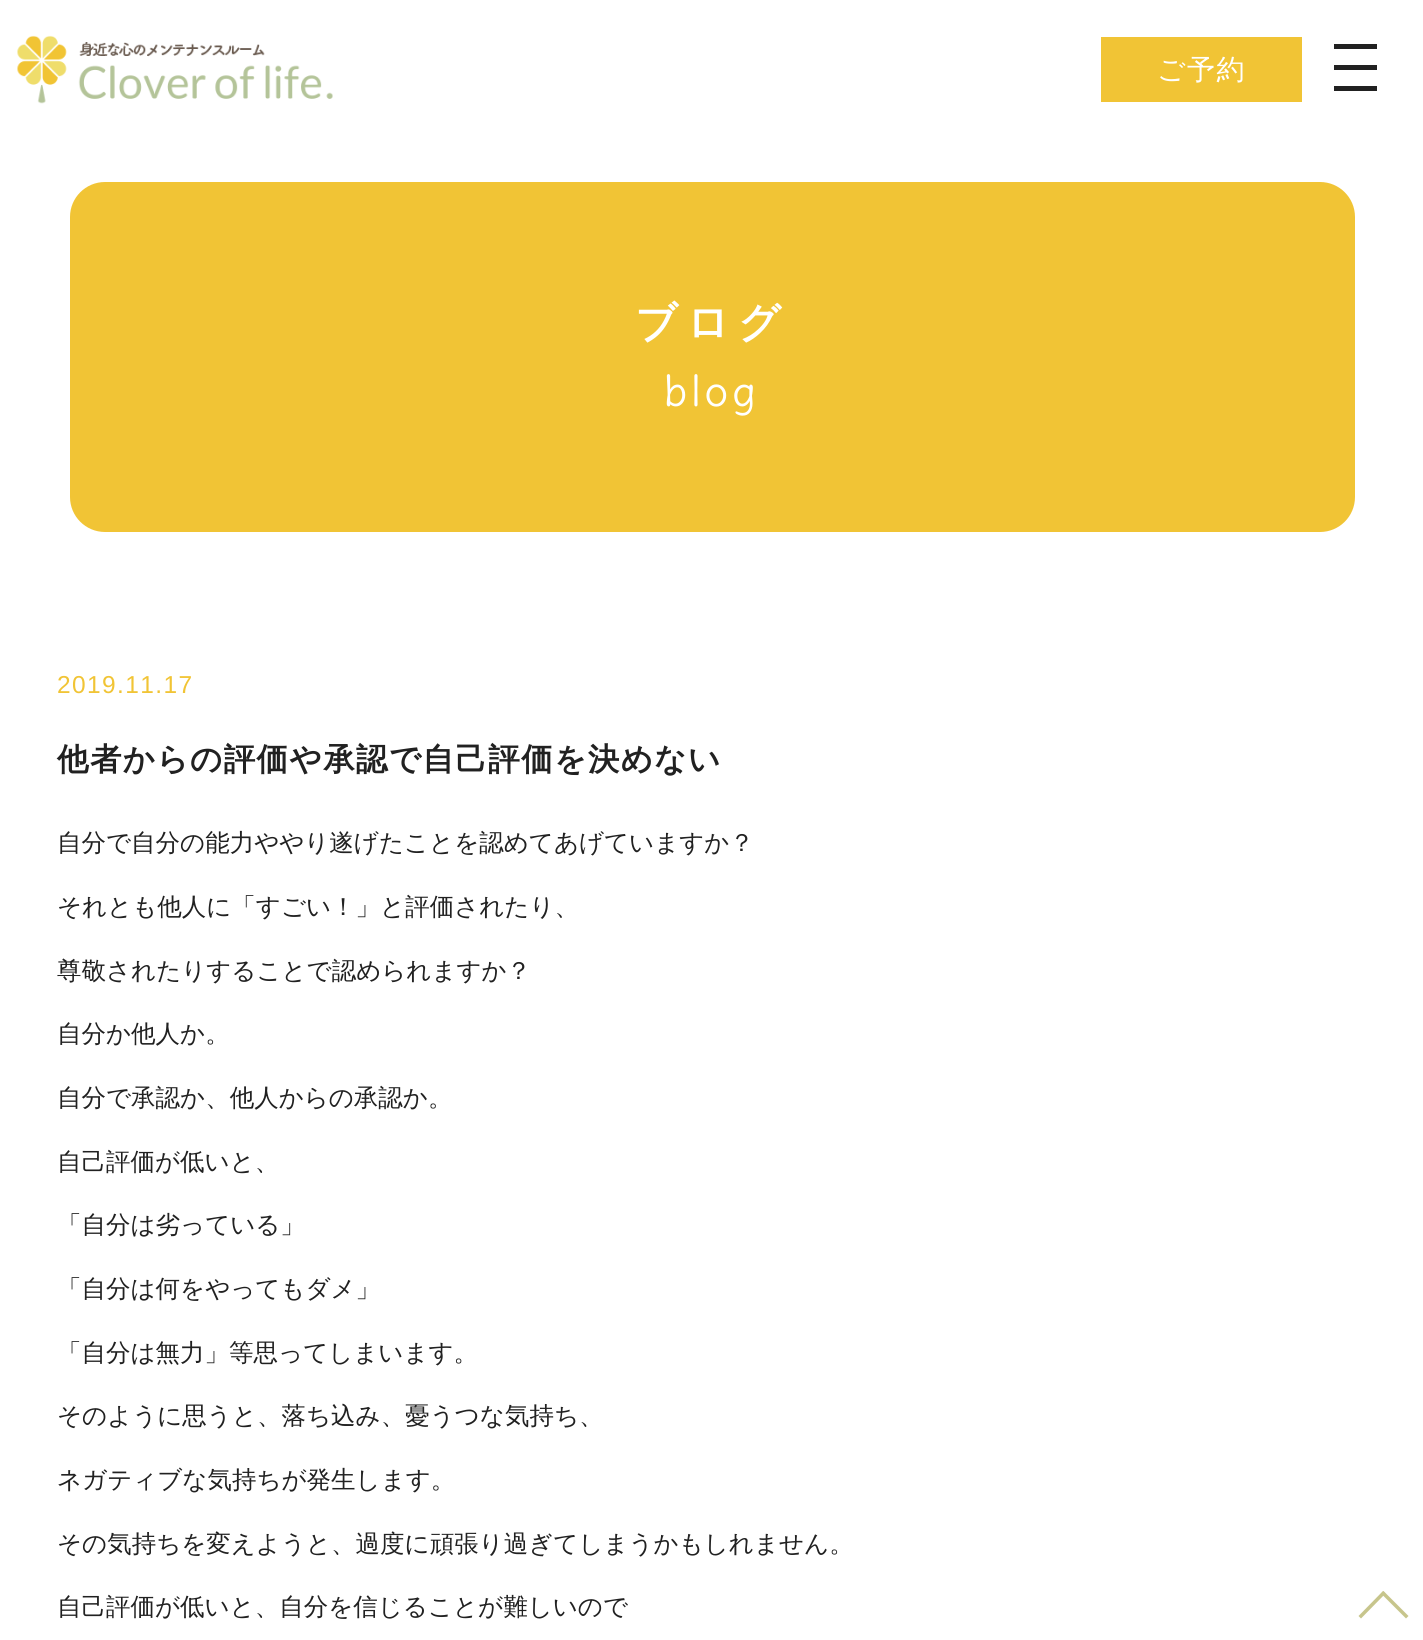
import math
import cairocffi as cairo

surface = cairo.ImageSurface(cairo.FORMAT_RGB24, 1423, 1640)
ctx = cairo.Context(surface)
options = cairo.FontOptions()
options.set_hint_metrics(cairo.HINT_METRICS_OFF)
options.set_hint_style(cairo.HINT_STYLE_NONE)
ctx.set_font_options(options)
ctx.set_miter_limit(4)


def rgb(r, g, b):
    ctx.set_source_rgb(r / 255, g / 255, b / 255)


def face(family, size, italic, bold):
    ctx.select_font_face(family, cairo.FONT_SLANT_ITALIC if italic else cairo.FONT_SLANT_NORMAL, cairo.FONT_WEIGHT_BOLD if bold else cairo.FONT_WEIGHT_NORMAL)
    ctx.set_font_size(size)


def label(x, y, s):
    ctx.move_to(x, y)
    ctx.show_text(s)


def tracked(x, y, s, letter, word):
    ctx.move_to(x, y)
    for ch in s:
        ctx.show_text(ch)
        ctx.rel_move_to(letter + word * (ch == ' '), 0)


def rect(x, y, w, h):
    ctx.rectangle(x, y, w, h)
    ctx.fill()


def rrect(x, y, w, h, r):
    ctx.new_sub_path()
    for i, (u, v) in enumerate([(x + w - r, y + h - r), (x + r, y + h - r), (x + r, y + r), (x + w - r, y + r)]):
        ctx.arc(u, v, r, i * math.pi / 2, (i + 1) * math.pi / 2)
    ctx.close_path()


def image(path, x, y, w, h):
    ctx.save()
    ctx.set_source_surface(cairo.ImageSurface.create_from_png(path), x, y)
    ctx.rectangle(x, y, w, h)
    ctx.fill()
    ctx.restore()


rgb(255, 255, 255)
ctx.paint()
image('image0.png', 17, 35, 316, 69)
rgb(241, 196, 53)
rect(1101, 37, 201, 65)
face('WenQuanYi Zen Hei Medium', 28, 0, 0)
rgb(255, 255, 255)
tracked(1157, 79, 'ご予約', 1.4, 0)
rgb(33, 33, 33)
rect(1334, 44, 43, 5)
rect(1334, 65, 43, 5)
rect(1334, 86, 43, 5)
rgb(241, 196, 53)
rrect(70, 182, 1285, 350, 35)
ctx.fill()
face('WenQuanYi Zen Hei', 42, 0, 1)
rgb(255, 255, 255)
tracked(635, 337, 'ブログ', 8.5, 0)
face('Delius', 42, 0, 0)
tracked(664, 406, 'blog', 4, 0)
face('Liberation Sans', 24.5, 0, 0)
rgb(241, 196, 53)
tracked(57, 693, '2019.11.17', 1.4, 0)
face('WenQuanYi Zen Hei', 31.5, 0, 1)
rgb(33, 33, 33)
tracked(57, 770, '他者からの評価や承認で自己評価を決めない', 1.4, 0)
face('WenQuanYi Zen Hei Medium', 24.5, 0, 0)
label(57, 851, '自分で自分の能力ややり遂げたことを認めてあげていますか？')
label(57, 915, 'それとも他人に「すごい！」と評価されたり、')
label(57, 979, '尊敬されたりすることで認められますか？')
label(57, 1042, '自分か他人か。')
label(57, 1106, '自分で承認か、他人からの承認か。')
label(57, 1170, '自己評価が低いと、')
label(57, 1233, '「自分は劣っている」')
label(57, 1297, '「自分は何をやってもダメ」')
label(57, 1361, '「自分は無力」等思ってしまいます。')
label(57, 1424, 'そのように思うと、落ち込み、憂うつな気持ち、')
label(57, 1488, 'ネガティブな気持ちが発生します。')
label(57, 1552, 'その気持ちを変えようと、過度に頑張り過ぎてしまうかもしれません。')
label(57, 1615, '自己評価が低いと、自分を信じることが難しいので')
rgb(199, 197, 140)
ctx.new_path()
ctx.move_to(1358.5, 1616)
ctx.line_to(1383, 1591)
ctx.line_to(1385.5, 1593.5)
ctx.line_to(1361, 1618.5)
ctx.close_path()
ctx.fill()
ctx.new_path()
ctx.move_to(1383.5, 1591)
ctx.line_to(1408.5, 1616)
ctx.line_to(1406, 1618.5)
ctx.line_to(1381, 1593.5)
ctx.close_path()
ctx.fill()
surface.write_to_png('render.png')
